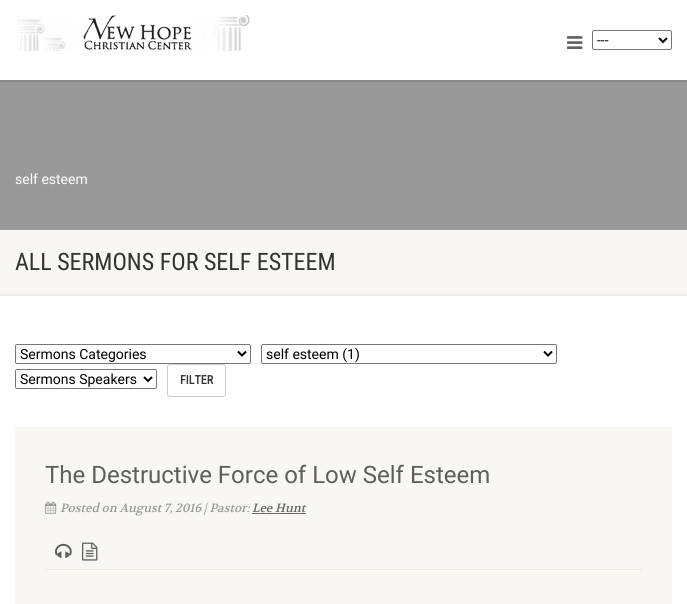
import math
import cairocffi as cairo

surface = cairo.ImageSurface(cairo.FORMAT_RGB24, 687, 604)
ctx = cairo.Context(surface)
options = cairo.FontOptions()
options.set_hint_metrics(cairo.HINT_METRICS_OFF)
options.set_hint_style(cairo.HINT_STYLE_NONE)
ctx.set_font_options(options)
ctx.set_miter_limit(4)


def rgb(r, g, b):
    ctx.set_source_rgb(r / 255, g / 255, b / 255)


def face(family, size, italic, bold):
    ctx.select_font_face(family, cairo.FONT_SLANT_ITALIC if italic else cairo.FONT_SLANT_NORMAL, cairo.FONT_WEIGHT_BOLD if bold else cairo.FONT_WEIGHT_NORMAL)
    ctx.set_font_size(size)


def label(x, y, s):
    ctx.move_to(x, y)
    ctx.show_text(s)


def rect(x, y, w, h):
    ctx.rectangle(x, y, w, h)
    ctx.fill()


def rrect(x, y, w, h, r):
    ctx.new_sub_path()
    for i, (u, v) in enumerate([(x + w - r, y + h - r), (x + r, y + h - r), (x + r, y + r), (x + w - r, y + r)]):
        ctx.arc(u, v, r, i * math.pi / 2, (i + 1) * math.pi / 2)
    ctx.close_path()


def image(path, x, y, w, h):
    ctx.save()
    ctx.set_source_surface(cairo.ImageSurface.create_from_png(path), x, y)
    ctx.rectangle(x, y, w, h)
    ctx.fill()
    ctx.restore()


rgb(255, 255, 255)
ctx.paint()
rgb(138, 138, 138)
rect(0, 80, 687, 2)
image('image0.png', 17, 15, 233, 36)
image('image1.png', 567, 36, 16, 13)
rrect(592.5, 30.5, 79, 19, 1.5)
rgb(118, 118, 118)
ctx.set_line_width(1)
ctx.stroke()
ctx.new_path()
ctx.move_to(659, 38)
ctx.line_to(663, 42)
ctx.line_to(667, 38)
rgb(0, 0, 0)
ctx.set_line_width(2)
ctx.stroke()
face('Roboto', 14, 0, 0)
label(597, 45, '---')
rgb(153, 153, 153)
rect(0, 82, 687, 148)
rgb(255, 255, 255)
label(15, 184, 'self esteem')
rgb(237, 237, 237)
rect(0, 294, 687, 2)
rgb(248, 247, 243)
rect(0, 230, 687, 64)
face('Roboto Condensed', 24, 0, 0)
rgb(51, 51, 51)
label(15, 270, 'ALL SERMONS FOR SELF ESTEEM')
rrect(15.5, 344.5, 235, 19, 1.5)
rgb(118, 118, 118)
ctx.set_line_width(1)
ctx.stroke()
ctx.new_path()
ctx.move_to(238, 351.5)
ctx.line_to(242, 355.5)
ctx.line_to(246, 351.5)
rgb(0, 0, 0)
ctx.set_line_width(2)
ctx.stroke()
face('Roboto', 14, 0, 0)
label(20, 359, 'Sermons Categories')
rrect(261.5, 344.5, 295, 19, 1.5)
rgb(118, 118, 118)
ctx.set_line_width(1)
ctx.stroke()
ctx.new_path()
ctx.move_to(544, 351.5)
ctx.line_to(548, 355.5)
ctx.line_to(552, 351.5)
rgb(0, 0, 0)
ctx.set_line_width(2)
ctx.stroke()
label(266, 359, 'self esteem (1)')
rrect(15.5, 369.5, 141, 19, 1.5)
rgb(118, 118, 118)
ctx.set_line_width(1)
ctx.stroke()
ctx.new_path()
ctx.move_to(144, 377)
ctx.line_to(148, 381)
ctx.line_to(152, 377)
rgb(0, 0, 0)
ctx.set_line_width(2)
ctx.stroke()
label(20, 384, 'Sermons Speakers')
rrect(167.5, 364.5, 58, 32, 2.5)
rgb(204, 204, 204)
ctx.set_line_width(1)
ctx.stroke()
face('Roboto Condensed', 12, 0, 1)
rgb(51, 51, 51)
label(180, 384, 'FILTER')
rgb(248, 247, 243)
rect(15, 427, 657, 177)
rgb(236, 234, 228)
rect(45, 569, 597, 1)
face('Roboto', 24, 0, 0)
rgb(94, 94, 94)
label(45, 483, 'The Destructive Force of Low Self Esteem')
image('image2.png', 45, 501, 12, 13)
face('Volkhov', 12, 1, 0)
rgb(153, 153, 153)
label(60, 512, 'Posted on August 7, 2016 | Pastor:')
rgb(102, 102, 102)
label(252, 512, 'Lee Hunt')
rect(252, 513, 54, 1)
image('image3.png', 55, 543, 17, 15)
image('image4.png', 82, 542, 16, 19)
surface.write_to_png('render.png')
